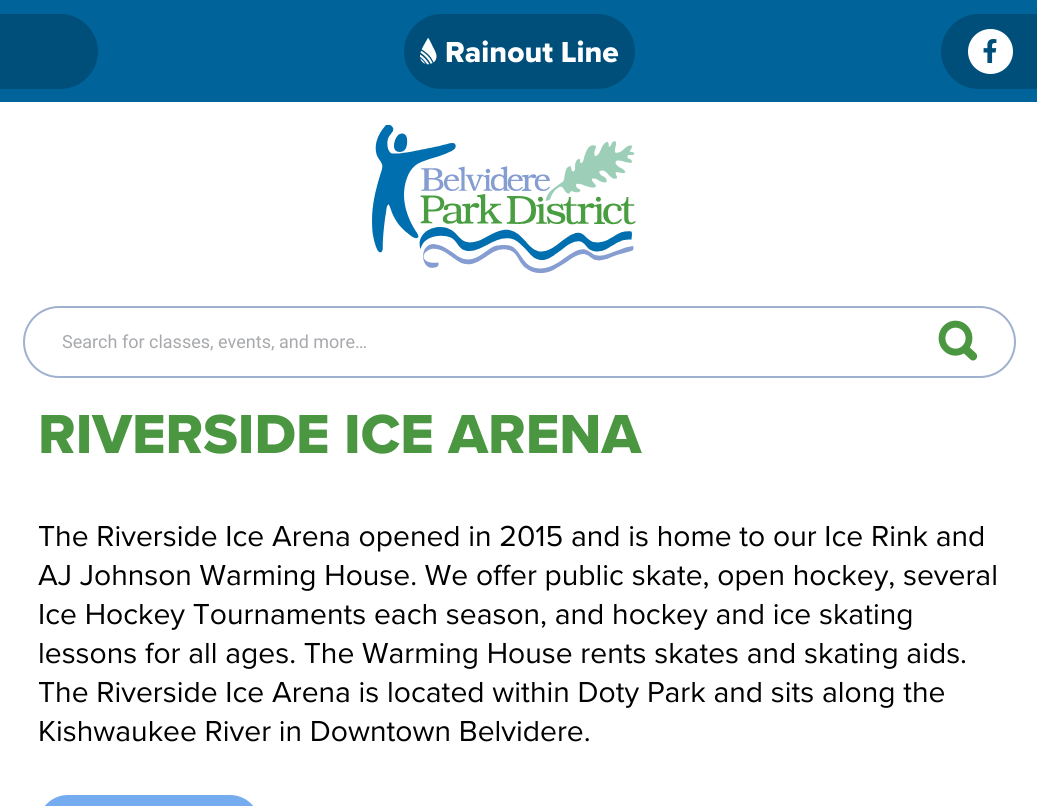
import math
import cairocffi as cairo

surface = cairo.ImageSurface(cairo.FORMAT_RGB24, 1037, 806)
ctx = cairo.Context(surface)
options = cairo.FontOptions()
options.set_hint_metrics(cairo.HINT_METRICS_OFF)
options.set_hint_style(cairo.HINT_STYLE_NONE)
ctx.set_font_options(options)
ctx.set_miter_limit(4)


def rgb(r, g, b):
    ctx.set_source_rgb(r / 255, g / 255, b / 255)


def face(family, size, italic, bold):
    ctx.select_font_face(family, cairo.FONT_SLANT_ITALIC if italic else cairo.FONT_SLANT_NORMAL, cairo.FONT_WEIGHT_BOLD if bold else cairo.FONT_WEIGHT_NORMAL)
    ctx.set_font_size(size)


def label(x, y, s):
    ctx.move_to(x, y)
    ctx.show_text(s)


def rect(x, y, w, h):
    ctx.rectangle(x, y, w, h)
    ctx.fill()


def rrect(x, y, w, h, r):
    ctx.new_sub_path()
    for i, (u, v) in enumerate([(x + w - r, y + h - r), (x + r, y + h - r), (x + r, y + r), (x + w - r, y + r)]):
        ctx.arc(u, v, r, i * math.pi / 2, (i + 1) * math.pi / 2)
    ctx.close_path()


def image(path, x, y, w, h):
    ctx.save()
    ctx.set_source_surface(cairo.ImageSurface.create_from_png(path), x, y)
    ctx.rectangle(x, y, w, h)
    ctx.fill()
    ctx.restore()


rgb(255, 255, 255)
ctx.paint()
rgb(0, 100, 154)
rect(0, 0, 1037, 102)
rgb(0, 79, 122)
ctx.new_path()
ctx.move_to(0, 14)
ctx.line_to(60.5, 14)
ctx.curve_to(81, 14, 98, 31, 98, 51.5)
ctx.curve_to(98, 72, 81, 89, 60.5, 89)
ctx.line_to(0, 89)
ctx.close_path()
ctx.fill()
rrect(404, 14, 231, 75, 37.5)
ctx.fill()
image('image0.png', 420, 38, 17, 27)
face('Proxima Nova ExtraBold', 30, 0, 0)
rgb(255, 255, 255)
label(445, 62, 'Rainout Line')
rgb(0, 79, 122)
ctx.new_path()
ctx.move_to(978.5, 14)
ctx.line_to(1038, 14)
ctx.line_to(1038, 89)
ctx.line_to(978.5, 89)
ctx.curve_to(958, 89, 941, 72, 941, 51.5)
ctx.curve_to(941, 31, 958, 14, 978.5, 14)
ctx.close_path()
ctx.fill()
rgb(255, 255, 255)
ctx.arc(990.5, 51.5, 22.5, 0, 2 * math.pi)
ctx.fill()
image('image1.png', 983, 39, 14, 24)
image('image2.png', 372, 125, 264, 148)
rrect(24, 307, 991, 70, 35)
rgb(160, 176, 207)
ctx.stroke()
face('Roboto', 18, 0, 0)
rgb(167, 169, 172)
label(62, 348, 'Search for classes, events, and more…')
image('image3.png', 938, 320, 40, 41)
face('Proxima Nova ExtraBold', 57, 0, 0)
rgb(75, 150, 65)
label(38, 453, 'RIVERSIDE ICE ARENA')
face('Proxima Nova', 30, 0, 0)
rgb(0, 0, 0)
label(38, 546, 'The Riverside Ice Arena opened in 2015 and is home to our Ice Rink and')
label(38, 585, 'AJ Johnson Warming House. We offer public skate, open hockey, several')
label(38, 624, 'Ice Hockey Tournaments each season, and hockey and ice skating')
label(38, 663, 'lessons for all ages. The Warming House rents skates and skating aids.')
label(38, 702, 'The Riverside Ice Arena is located within Doty Park and sits along the')
label(38, 741, 'Kishwaukee River in Downtown Belvidere.')
rgb(117, 171, 239)
rrect(38, 795, 222, 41, 30)
ctx.fill()
surface.write_to_png('render.png')
